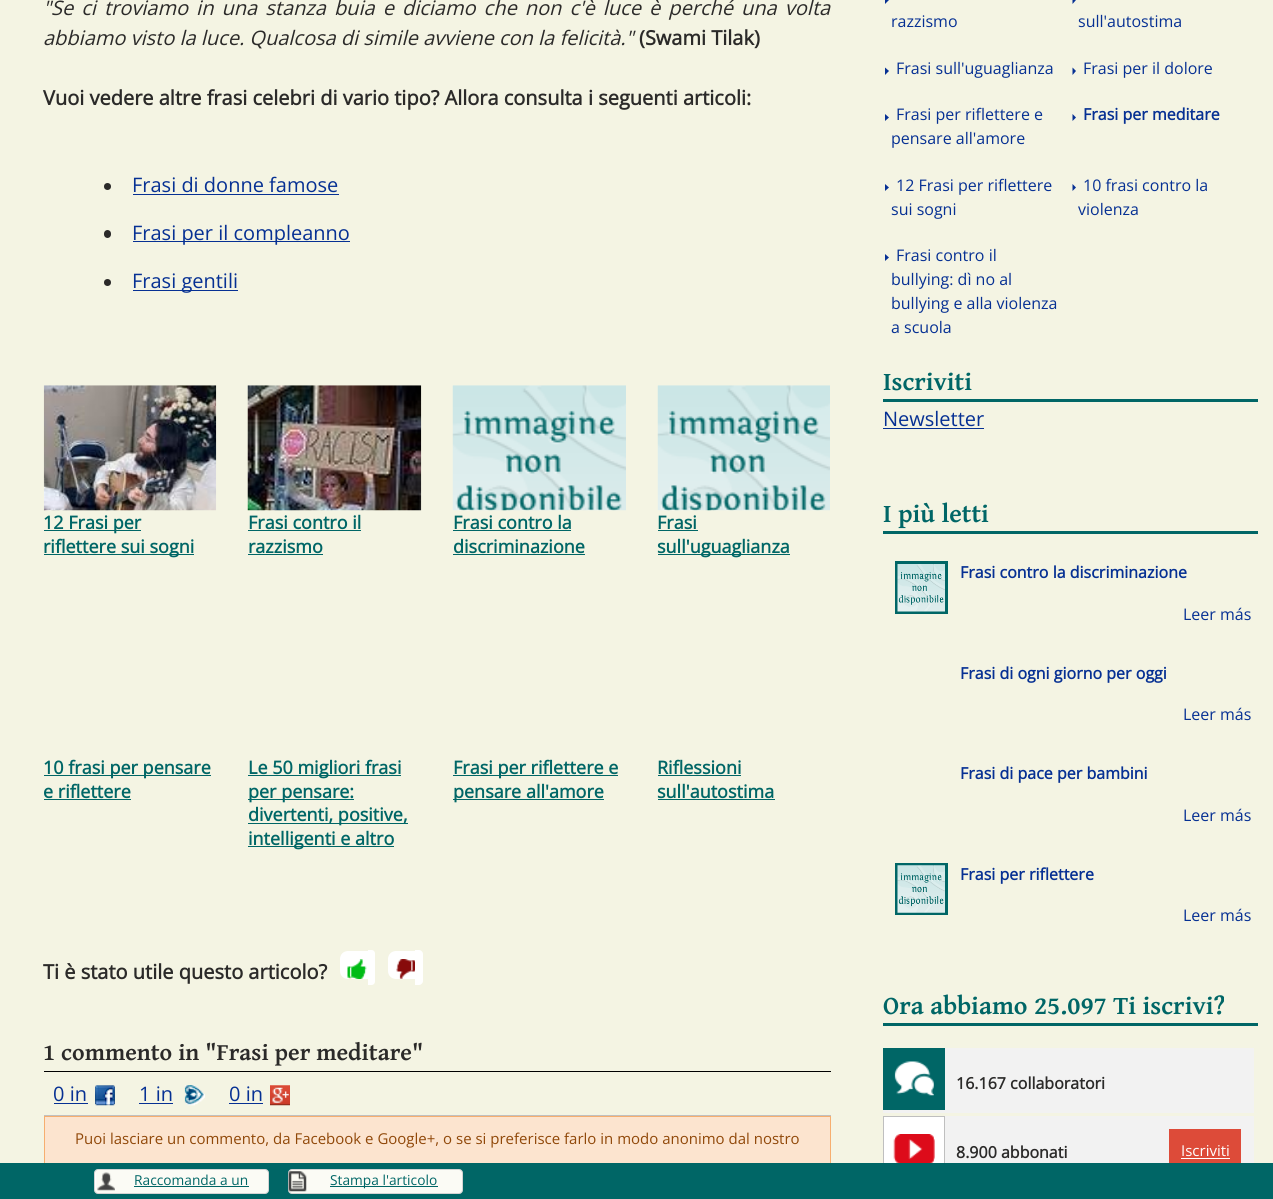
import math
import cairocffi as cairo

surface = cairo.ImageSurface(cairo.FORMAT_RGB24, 1273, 1199)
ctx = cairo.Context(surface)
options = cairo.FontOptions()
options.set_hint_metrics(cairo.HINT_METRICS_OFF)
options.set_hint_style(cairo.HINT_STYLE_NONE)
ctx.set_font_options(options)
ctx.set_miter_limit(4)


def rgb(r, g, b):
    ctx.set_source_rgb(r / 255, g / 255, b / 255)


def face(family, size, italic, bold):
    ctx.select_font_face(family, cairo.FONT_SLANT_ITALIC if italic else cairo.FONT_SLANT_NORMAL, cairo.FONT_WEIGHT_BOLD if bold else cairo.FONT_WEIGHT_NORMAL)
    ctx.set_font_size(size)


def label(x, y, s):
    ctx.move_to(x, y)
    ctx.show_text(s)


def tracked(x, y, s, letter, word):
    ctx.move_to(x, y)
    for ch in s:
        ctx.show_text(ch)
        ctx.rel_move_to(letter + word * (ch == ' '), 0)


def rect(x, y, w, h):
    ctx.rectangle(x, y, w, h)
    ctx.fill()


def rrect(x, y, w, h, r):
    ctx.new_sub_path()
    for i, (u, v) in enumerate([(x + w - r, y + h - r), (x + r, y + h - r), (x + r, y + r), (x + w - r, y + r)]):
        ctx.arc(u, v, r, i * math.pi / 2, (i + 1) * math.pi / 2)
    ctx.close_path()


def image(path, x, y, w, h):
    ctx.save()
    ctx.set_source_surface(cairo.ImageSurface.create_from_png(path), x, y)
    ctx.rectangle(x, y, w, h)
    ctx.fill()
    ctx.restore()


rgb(255, 255, 255)
ctx.paint()
ctx.rectangle(-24.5, -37.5, 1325, 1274)
rgb(244, 244, 227)
ctx.set_line_width(75)
ctx.stroke()
rect(13, 0, 1250, 1163)
face('Open Sans', 20, 1, 0)
rgb(43, 42, 41)
tracked(43, 15, '"Se ci troviamo in una stanza buia e diciamo che non c\'è luce è perché una volta', 0, 2.9)
label(43, 45, 'abbiamo visto la luce. Qualcosa di simile avviene con la felicità."')
face('Open Sans', 20, 0, 1)
label(639, 45, '(Swami Tilak)')
label(43, 105, 'Vuoi vedere altre frasi celebri di vario tipo? Allora consulta i seguenti articoli:')
ctx.new_path()
ctx.arc(107.5, 186.5, 3.5, 0, 2 * math.pi)
ctx.fill()
face('Open Sans', 20, 0, 0)
rgb(6, 48, 147)
label(132, 192, 'Frasi di donne famose')
rect(133, 194, 206, 1)
rgb(43, 42, 41)
rrect(104, 230, 7, 8, 3.5)
ctx.fill()
rgb(6, 48, 147)
rect(133, 241, 217, 1)
label(132, 240, 'Frasi per il compleanno')
rgb(43, 42, 41)
ctx.new_path()
ctx.arc(107.5, 282.5, 3.5, 0, 2 * math.pi)
ctx.fill()
rgb(6, 48, 147)
rect(133, 290, 105, 1)
label(132, 288, 'Frasi gentili')
image('image0.png', 43, 385, 174, 126)
rgb(0, 102, 102)
rect(44, 530, 97, 1)
face('Open Sans', 18, 0, 1)
label(43, 529, '12 Frasi per')
rect(44, 554, 150, 1)
label(43, 553, 'riflettere sui sogni')
image('image1.png', 247, 385, 175, 126)
label(248, 529, 'Frasi contro il')
rect(248, 530, 113, 1)
label(248, 553, 'razzismo')
rect(248, 554, 75, 1)
image('image2.png', 452, 385, 174, 126)
label(453, 529, 'Frasi contro la')
rect(453, 530, 118, 1)
label(453, 553, 'discriminazione')
rect(453, 554, 132, 1)
image('image3.png', 657, 385, 173, 126)
label(657, 529, 'Frasi')
rect(658, 530, 40, 1)
rect(658, 554, 132, 1)
label(657, 553, 'sull\'uguaglianza')
rect(44, 775, 167, 1)
label(43, 774, '10 frasi per pensare')
label(43, 798, 'e riflettere')
rect(44, 799, 87, 1)
rect(248, 775, 153, 1)
label(248, 774, 'Le 50 migliori frasi')
rect(248, 799, 106, 1)
label(248, 798, 'per pensare:')
rect(248, 823, 160, 1)
label(248, 821, 'divertenti, positive,')
rect(248, 846, 146, 1)
label(248, 845, 'intelligenti e altro')
rect(453, 775, 165, 1)
label(453, 774, 'Frasi per riflettere e')
rect(453, 799, 151, 1)
label(453, 798, 'pensare all\'amore')
label(657, 774, 'Riflessioni')
rect(658, 775, 83, 1)
label(657, 798, 'sull\'autostima')
rect(658, 799, 117, 1)
face('Open Sans', 20, 0, 1)
rgb(43, 42, 41)
label(43, 979, 'Ti è stato utile questo articolo?')
rgb(255, 255, 255)
ctx.new_path()
ctx.move_to(348, 951)
ctx.line_to(368, 951)
ctx.line_to(368, 979)
ctx.line_to(348, 979)
ctx.curve_to(343.5, 979, 340, 975.5, 340, 971)
ctx.line_to(340, 959)
ctx.curve_to(340, 954.5, 343.5, 951, 348, 951)
ctx.close_path()
ctx.fill()
ctx.new_path()
ctx.move_to(368, 950)
ctx.line_to(371.5, 950)
ctx.curve_to(373.5, 950, 375, 951.5, 375, 953.5)
ctx.line_to(375, 981.5)
ctx.curve_to(375, 983.5, 373.5, 985, 371.5, 985)
ctx.line_to(368, 985)
ctx.close_path()
ctx.fill()
image('image4.png', 347, 959, 20, 20)
ctx.new_path()
ctx.move_to(396, 951)
ctx.line_to(415, 951)
ctx.line_to(415, 979)
ctx.line_to(396, 979)
ctx.curve_to(391.5, 979, 388, 975.5, 388, 971)
ctx.line_to(388, 959)
ctx.curve_to(388, 954.5, 391.5, 951, 396, 951)
ctx.close_path()
ctx.fill()
ctx.new_path()
ctx.move_to(415, 950)
ctx.line_to(419, 950)
ctx.curve_to(421, 950, 423, 952, 423, 954)
ctx.line_to(423, 981)
ctx.curve_to(423, 983, 421, 985, 419, 985)
ctx.line_to(415, 985)
ctx.close_path()
ctx.fill()
image('image5.png', 396, 959, 19, 20)
rgb(0, 0, 0)
rect(44, 1071, 787, 1)
face('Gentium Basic', 24, 0, 1)
rgb(43, 42, 41)
label(43, 1060, '1 commento in "Frasi per meditare"')
rgb(192, 192, 192)
rect(44, 1115, 787, 1)
face('Open Sans', 20, 0, 0)
rgb(6, 48, 147)
label(53, 1101, '0 in')
rect(54, 1103, 34, 1)
image('image6.png', 95, 1085, 20, 21)
label(139, 1101, '1 in')
rect(139, 1103, 34, 1)
image('image7.png', 184, 1085, 21, 21)
label(229, 1101, '0 in')
rect(229, 1103, 34, 1)
image('image8.png', 270, 1085, 20, 21)
rgb(252, 228, 207)
rect(45, 1117, 785, 46)
ctx.rectangle(44.5, 1116.5, 786, 67)
rgb(246, 174, 111)
ctx.set_line_width(1)
ctx.stroke()
face('Open Sans', 15, 0, 0)
rgb(144, 72, 9)
label(75, 1144, 'Puoi lasciare un commento, da Facebook e Google+, o se si preferisce farlo in modo anonimo dal nostro')
rgb(6, 48, 147)
ctx.new_path()
ctx.move_to(885, 4)
ctx.line_to(885, -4)
ctx.line_to(889, 0)
ctx.close_path()
ctx.fill()
face('Open Sans', 16, 0, 0)
label(891, 27, 'razzismo')
ctx.new_path()
ctx.move_to(1072.5, 4)
ctx.line_to(1072.5, -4)
ctx.line_to(1076, 0)
ctx.close_path()
ctx.fill()
label(1078, 27, 'sull\'autostima')
ctx.new_path()
ctx.move_to(885, 75)
ctx.line_to(885, 67.5)
ctx.line_to(889, 71)
ctx.close_path()
ctx.fill()
label(896, 74, 'Frasi sull\'uguaglianza')
ctx.new_path()
ctx.move_to(1072.5, 75)
ctx.line_to(1072.5, 67.5)
ctx.line_to(1076, 71)
ctx.close_path()
ctx.fill()
label(1083, 74, 'Frasi per il dolore')
ctx.new_path()
ctx.move_to(885, 121)
ctx.line_to(885, 114)
ctx.line_to(889, 117.5)
ctx.close_path()
ctx.fill()
label(896, 120, 'Frasi per riflettere e')
label(891, 144, 'pensare all\'amore')
ctx.new_path()
ctx.move_to(1072.5, 121)
ctx.line_to(1072.5, 114)
ctx.line_to(1076, 117.5)
ctx.close_path()
ctx.fill()
face('Open Sans', 16, 0, 1)
label(1083, 120, 'Frasi per meditare')
ctx.new_path()
ctx.move_to(885, 191)
ctx.line_to(885, 184)
ctx.line_to(889, 187.5)
ctx.close_path()
ctx.fill()
face('Open Sans', 16, 0, 0)
label(896, 191, '12 Frasi per riflettere')
label(891, 215, 'sui sogni')
ctx.new_path()
ctx.move_to(1072.5, 191)
ctx.line_to(1072.5, 184)
ctx.line_to(1076, 187.5)
ctx.close_path()
ctx.fill()
label(1083, 191, '10 frasi contro la')
label(1078, 215, 'violenza')
ctx.new_path()
ctx.move_to(885, 261)
ctx.line_to(885, 254)
ctx.line_to(889, 257.5)
ctx.close_path()
ctx.fill()
label(896, 261, 'Frasi contro il')
label(891, 285, 'bullying: dì no al')
label(891, 309, 'bullying e alla violenza')
label(891, 333, 'a scuola')
rgb(0, 102, 102)
rect(883, 399, 375, 3)
face('Gentium Basic', 26, 0, 1)
label(883, 390, 'Iscriviti')
face('Open Sans', 20, 0, 0)
rgb(6, 48, 147)
label(883, 426, 'Newsletter')
rect(883, 428, 101, 1)
rgb(0, 102, 102)
rect(883, 531, 375, 3)
face('Gentium Basic', 26, 0, 1)
label(883, 522, 'I più letti')
ctx.rectangle(896.5, 562.5, 50, 50)
ctx.set_line_width(3)
ctx.stroke()
image('image9.png', 897, 564, 48, 48)
face('Open Sans', 16, 0, 1)
rgb(6, 48, 147)
label(960, 578, 'Frasi contro la discriminazione')
face('Open Sans', 16, 0, 0)
label(1183, 620, 'Leer más')
face('Open Sans', 16, 0, 1)
label(960, 679, 'Frasi di ogni giorno per oggi')
face('Open Sans', 16, 0, 0)
label(1183, 720, 'Leer más')
face('Open Sans', 16, 0, 1)
label(960, 779, 'Frasi di pace per bambini')
face('Open Sans', 16, 0, 0)
label(1183, 821, 'Leer más')
ctx.rectangle(896.5, 864.5, 50, 49)
rgb(0, 102, 102)
ctx.stroke()
image('image10.png', 897, 865, 48, 48)
face('Open Sans', 16, 0, 1)
rgb(6, 48, 147)
label(960, 880, 'Frasi per riflettere')
face('Open Sans', 16, 0, 0)
label(1183, 921, 'Leer más')
rgb(0, 102, 102)
rect(883, 1023, 375, 3)
face('Gentium Basic', 26, 0, 1)
label(883, 1014, 'Ora abbiamo 25.097 Ti iscrivi?')
rgb(242, 242, 242)
rect(883, 1048, 371, 65)
rgb(0, 102, 102)
rect(883, 1048, 62, 62)
image('image11.png', 894, 1061, 40, 35)
face('Open Sans', 16, 0, 1)
rgb(43, 42, 41)
label(956, 1089, '16.167 collaboratori')
rgb(242, 242, 242)
rect(945, 1116, 309, 47)
rgb(255, 255, 255)
rect(884, 1117, 60, 46)
ctx.rectangle(883.5, 1116.5, 61, 62)
rgb(191, 191, 191)
ctx.set_line_width(1)
ctx.stroke()
image('image12.png', 893, 1134, 42, 29)
rgb(43, 42, 41)
label(956, 1158, '8.900 abbonati')
rgb(221, 75, 57)
rect(1169, 1129, 72, 34)
face('Open Sans', 15, 0, 0)
rgb(255, 255, 255)
label(1181, 1156, 'Iscriviti')
rect(1181, 1158, 49, 1)
rgb(0, 102, 102)
rect(0, 1163, 1273, 36)
rgb(251, 251, 245)
rrect(94.5, 1169.5, 174, 24, 3.5)
ctx.fill_preserve()
rgb(211, 211, 211)
ctx.stroke()
image('image13.png', 95, 1172, 20, 19)
face('Open Sans', 13.75, 0, 0)
rgb(0, 102, 102)
label(134, 1185, 'Raccomanda a un')
rect(134, 1186, 115, 1)
rgb(251, 251, 245)
rrect(288.5, 1169.5, 174, 24, 3.5)
ctx.fill_preserve()
rgb(211, 211, 211)
ctx.stroke()
image('image14.png', 288, 1171, 19, 21)
rgb(0, 102, 102)
rect(330, 1186, 108, 1)
label(330, 1185, 'Stampa l\'articolo')
surface.write_to_png('render.png')
